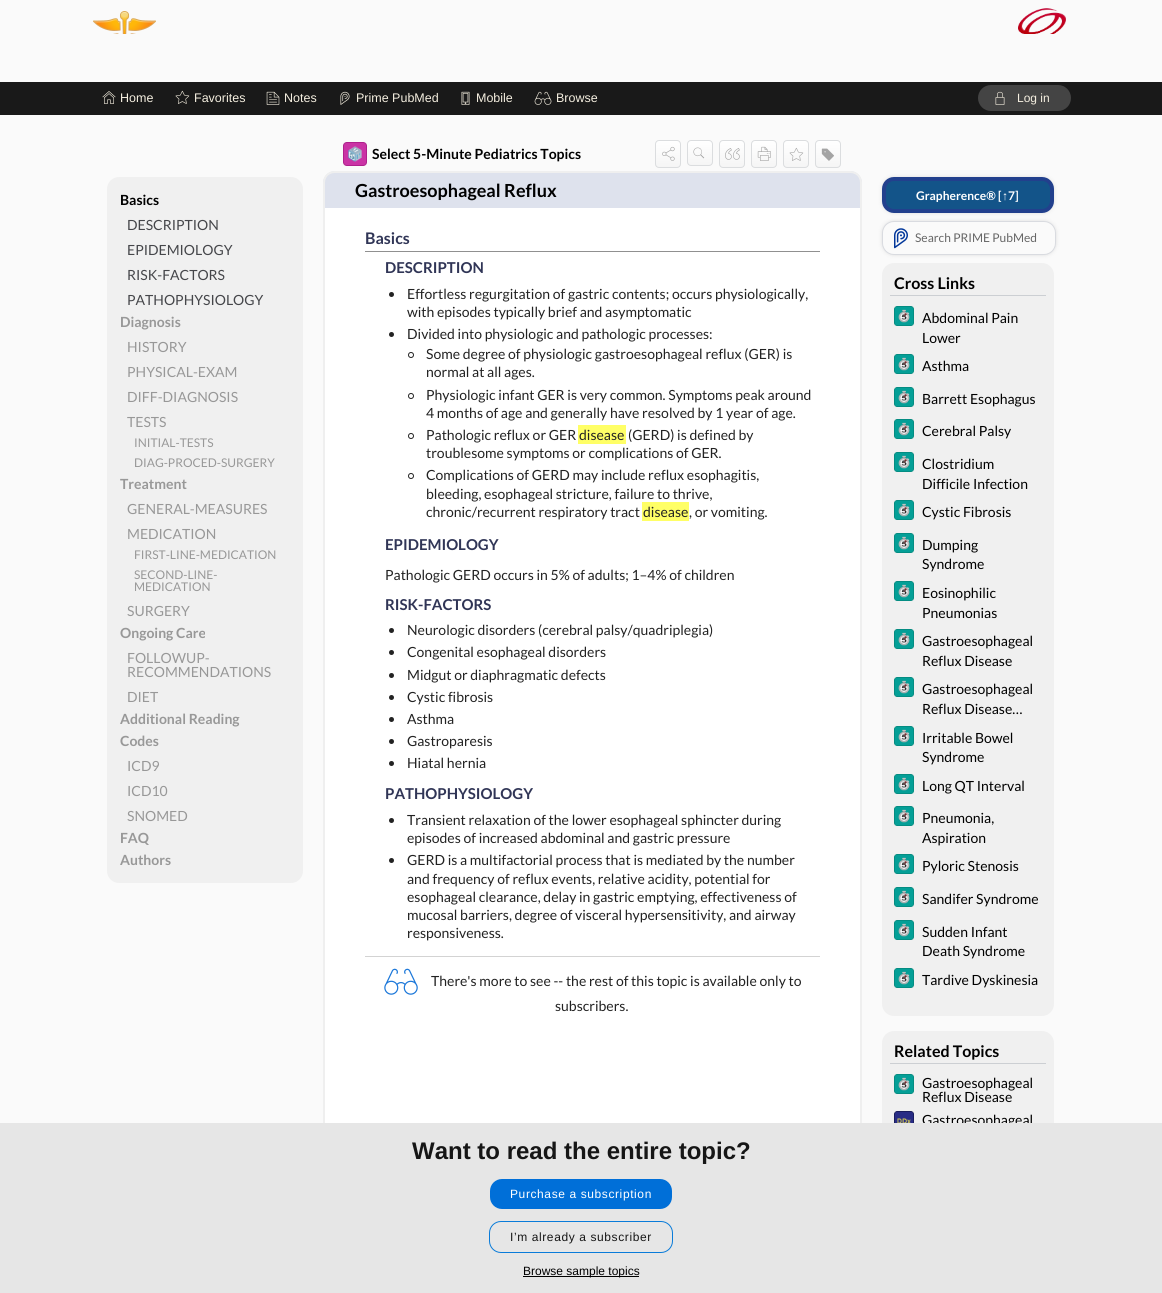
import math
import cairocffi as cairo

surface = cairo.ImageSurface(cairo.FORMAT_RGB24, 1162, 1293)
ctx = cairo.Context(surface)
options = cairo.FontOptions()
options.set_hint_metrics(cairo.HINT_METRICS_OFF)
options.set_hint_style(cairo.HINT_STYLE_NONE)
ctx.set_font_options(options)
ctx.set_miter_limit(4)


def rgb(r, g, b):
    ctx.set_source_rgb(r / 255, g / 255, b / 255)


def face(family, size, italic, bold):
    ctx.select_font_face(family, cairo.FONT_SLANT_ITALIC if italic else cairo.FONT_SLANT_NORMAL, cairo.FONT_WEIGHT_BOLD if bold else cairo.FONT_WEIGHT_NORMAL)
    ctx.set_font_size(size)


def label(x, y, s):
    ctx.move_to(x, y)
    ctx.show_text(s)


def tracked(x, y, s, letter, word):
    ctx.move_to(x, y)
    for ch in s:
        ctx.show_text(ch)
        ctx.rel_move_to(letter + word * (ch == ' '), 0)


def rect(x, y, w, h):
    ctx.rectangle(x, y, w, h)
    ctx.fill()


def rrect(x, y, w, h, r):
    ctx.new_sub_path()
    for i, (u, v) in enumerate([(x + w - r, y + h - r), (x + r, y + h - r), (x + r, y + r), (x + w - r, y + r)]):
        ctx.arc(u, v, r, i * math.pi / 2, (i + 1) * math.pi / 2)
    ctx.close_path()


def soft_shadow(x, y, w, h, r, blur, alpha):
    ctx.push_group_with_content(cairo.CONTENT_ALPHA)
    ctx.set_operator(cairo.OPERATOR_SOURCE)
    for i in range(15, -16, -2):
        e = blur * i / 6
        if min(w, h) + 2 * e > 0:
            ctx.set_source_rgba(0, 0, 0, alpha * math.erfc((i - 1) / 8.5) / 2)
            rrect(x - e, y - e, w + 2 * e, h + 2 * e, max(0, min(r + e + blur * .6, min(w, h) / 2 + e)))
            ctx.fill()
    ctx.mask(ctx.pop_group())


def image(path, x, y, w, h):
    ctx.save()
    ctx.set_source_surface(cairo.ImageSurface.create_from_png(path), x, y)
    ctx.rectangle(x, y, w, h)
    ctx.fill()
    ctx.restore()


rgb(250, 250, 250)
ctx.paint()
image('image0.png', 93, 11, 63, 23)
image('image1.png', 1018, 8, 48, 26)
rgb(25, 25, 25)
rect(0, 82, 1162, 33)
image('image2.png', 102, 91, 14, 13)
face('Liberation Sans', 12.5, 0, 0)
rgb(245, 239, 224)
label(120, 102, 'Home')
image('image3.png', 175, 90, 15, 14)
label(194, 102, 'Favorites')
image('image4.png', 266, 91, 14, 14)
label(284, 102, 'Notes')
image('image5.png', 340, 91, 10, 14)
label(356, 102, 'Prime PubMed')
image('image6.png', 461, 91, 9, 14)
label(476, 102, 'Mobile')
image('image7.png', 534, 91, 18, 14)
label(556, 102, 'Browse')
rgb(68, 68, 68)
rrect(978, 85, 93, 26, 13)
ctx.fill()
image('image8.png', 995, 91, 10, 14)
face('Liberation Sans', 12, 0, 0)
rgb(245, 239, 224)
label(1017, 102, 'Log in')
rgb(240, 240, 240)
rrect(107, 177, 196, 706, 12)
ctx.fill()
face('Lato', 14, 0, 1)
rgb(0, 0, 0)
label(120, 205, 'Basics')
face('Lato', 14, 0, 0)
rgb(69, 70, 74)
label(127, 230, 'DESCRIPTION')
label(127, 255, 'EPIDEMIOLOGY')
label(127, 280, 'RISK-FACTORS')
label(127, 305, 'PATHOPHYSIOLOGY')
face('Lato', 14, 0, 1)
rgb(152, 152, 152)
label(120, 327, 'Diagnosis')
face('Lato', 14, 0, 0)
label(127, 352, 'HISTORY')
label(127, 377, 'PHYSICAL-EXAM')
label(127, 402, 'DIFF-DIAGNOSIS')
label(127, 427, 'TESTS')
face('Lato', 12, 0, 0)
label(134, 447, 'INITIAL-TESTS')
label(134, 467, 'DIAG-PROCED-SURGERY')
face('Lato', 14, 0, 1)
label(120, 489, 'Treatment')
face('Lato', 14, 0, 0)
label(127, 514, 'GENERAL-MEASURES')
label(127, 539, 'MEDICATION')
face('Lato', 12, 0, 0)
label(134, 559, 'FIRST-LINE-MEDICATION')
label(134, 579, 'SECOND-LINE-')
label(134, 591, 'MEDICATION')
face('Lato', 14, 0, 0)
label(127, 616, 'SURGERY')
face('Lato', 14, 0, 1)
label(120, 638, 'Ongoing Care')
face('Lato', 14, 0, 0)
label(127, 663, 'FOLLOWUP-')
label(127, 677, 'RECOMMENDATIONS')
label(127, 702, 'DIET')
face('Lato', 14, 0, 1)
label(120, 724, 'Additional Reading')
label(120, 746, 'Codes')
face('Lato', 14, 0, 0)
label(127, 771, 'ICD9')
label(127, 796, 'ICD10')
label(127, 821, 'SNOMED')
face('Lato', 14, 0, 1)
label(120, 843, 'FAQ')
label(120, 865, 'Authors')
image('image9.png', 343, 142, 24, 24)
rgb(0, 0, 0)
label(372, 159, 'Select 5-Minute Pediatrics Topics')
ctx.save()
rrect(655, 140, 26, 28, 4)
ctx.clip()
gradient = cairo.LinearGradient(668, 141, 668, 167)
gradient.add_color_stop_rgba(0, 1, 1, 1, 1)
gradient.add_color_stop_rgba(1, 0.961, 0.961, 0.961, 1)
ctx.set_source(gradient)
rect(655, 141, 26, 26)
ctx.restore()
rrect(655.5, 140.5, 25, 27, 3.5)
rgb(219, 221, 223)
ctx.set_line_width(1)
ctx.stroke()
image('image10.png', 662, 146, 13, 15)
ctx.save()
rrect(687, 140, 26, 26, 4)
ctx.clip()
gradient = cairo.LinearGradient(700, 141, 700, 165)
gradient.add_color_stop_rgba(0, 1, 1, 1, 1)
gradient.add_color_stop_rgba(1, 0.961, 0.961, 0.961, 1)
ctx.set_source(gradient)
rect(687, 141, 26, 24)
ctx.restore()
rrect(687.5, 140.5, 25, 25, 3.5)
ctx.stroke()
image('image11.png', 693, 147, 12, 12)
ctx.save()
rrect(719, 140, 26, 28, 4)
ctx.clip()
gradient = cairo.LinearGradient(732, 141, 732, 167)
gradient.add_color_stop_rgba(0, 1, 1, 1, 1)
gradient.add_color_stop_rgba(1, 0.961, 0.961, 0.961, 1)
ctx.set_source(gradient)
rect(719, 141, 26, 26)
ctx.restore()
rrect(719.5, 140.5, 25, 27, 3.5)
ctx.stroke()
image('image12.png', 725, 148, 15, 12)
ctx.save()
rrect(751, 140, 26, 28, 4)
ctx.clip()
gradient = cairo.LinearGradient(764, 141, 764, 167)
gradient.add_color_stop_rgba(0, 1, 1, 1, 1)
gradient.add_color_stop_rgba(1, 0.961, 0.961, 0.961, 1)
ctx.set_source(gradient)
rect(751, 141, 26, 26)
ctx.restore()
rrect(751.5, 140.5, 25, 27, 3.5)
ctx.stroke()
image('image13.png', 757, 146, 14, 15)
ctx.save()
rrect(783, 140, 26, 28, 4)
ctx.clip()
gradient = cairo.LinearGradient(796, 141, 796, 167)
gradient.add_color_stop_rgba(0, 1, 1, 1, 1)
gradient.add_color_stop_rgba(1, 0.961, 0.961, 0.961, 1)
ctx.set_source(gradient)
rect(783, 141, 26, 26)
ctx.restore()
rrect(783.5, 140.5, 25, 27, 3.5)
ctx.stroke()
image('image14.png', 789, 147, 15, 14)
ctx.save()
rrect(815, 140, 26, 28, 4)
ctx.clip()
gradient = cairo.LinearGradient(828, 141, 828, 167)
gradient.add_color_stop_rgba(0, 1, 1, 1, 1)
gradient.add_color_stop_rgba(1, 0.961, 0.961, 0.961, 1)
ctx.set_source(gradient)
rect(815, 141, 26, 26)
ctx.restore()
rrect(815.5, 140.5, 25, 27, 3.5)
ctx.stroke()
image('image15.png', 821, 148, 13, 13)
rgb(222, 226, 237)
ctx.new_path()
ctx.move_to(335, 171)
ctx.line_to(850, 171)
ctx.curve_to(856.5, 171, 862, 176.5, 862, 183)
ctx.line_to(862, 208)
ctx.line_to(323, 208)
ctx.line_to(323, 183)
ctx.curve_to(323, 176.5, 328.5, 171, 335, 171)
ctx.close_path()
ctx.fill()
rgb(239, 239, 239)
ctx.set_fill_rule(cairo.FILL_RULE_EVEN_ODD)
ctx.new_path()
ctx.move_to(335, 171)
ctx.line_to(850, 171)
ctx.curve_to(857, 171, 862, 176, 862, 183)
ctx.line_to(862, 208)
ctx.line_to(323, 208)
ctx.line_to(323, 183)
ctx.curve_to(323, 176, 328, 171, 335, 171)
ctx.close_path()
ctx.move_to(335, 173)
ctx.line_to(850, 173)
ctx.curve_to(856, 173, 860, 177, 860, 183)
ctx.line_to(860, 208)
ctx.line_to(325, 208)
ctx.line_to(325, 183)
ctx.curve_to(325, 177, 329, 173, 335, 173)
ctx.close_path()
ctx.fill()
face('Lato', 18, 0, 1)
rgb(0, 0, 0)
label(355, 197, 'Gastroesophageal Reflux')
rgb(255, 255, 255)
rect(325, 208, 535, 915)
rgb(239, 239, 239)
ctx.new_path()
ctx.move_to(323, 208)
ctx.line_to(862, 208)
ctx.line_to(862, 1171)
ctx.curve_to(862, 1182, 853, 1191, 842, 1191)
ctx.line_to(343, 1191)
ctx.curve_to(332, 1191, 323, 1182, 323, 1171)
ctx.close_path()
ctx.move_to(325, 208)
ctx.line_to(860, 208)
ctx.line_to(860, 1171)
ctx.curve_to(860, 1181, 852, 1189, 842, 1189)
ctx.line_to(343, 1189)
ctx.curve_to(333, 1189, 325, 1181, 325, 1171)
ctx.close_path()
ctx.fill()
rgb(144, 144, 144)
rect(365, 251, 455, 1)
face('Lato', 16, 0, 1)
rgb(48, 53, 86)
label(365, 244, 'Basics')
face('Lato', 15, 0, 1)
label(385, 273, 'DESCRIPTION')
rgb(34, 34, 34)
ctx.new_path()
ctx.arc(391.5, 294.5, 2.5, 0, 2 * math.pi)
ctx.fill()
face('Lato', 14, 0, 0)
label(407, 299, 'Effortless regurgitation of gastric contents; occurs physiologically,')
label(407, 317, 'with episodes typically brief and asymptomatic')
ctx.new_path()
ctx.arc(391.5, 334.5, 2.5, 0, 2 * math.pi)
ctx.fill()
label(407, 339, 'Divided into physiologic and pathologic processes:')
ctx.new_path()
ctx.arc(411, 355, 2.5, 0, 2 * math.pi)
ctx.stroke()
label(426, 359, 'Some degree of physiologic gastroesophageal reflux (GER) is')
label(426, 377, 'normal at all ages.')
ctx.new_path()
ctx.arc(411, 396, 2.5, 0, 2 * math.pi)
ctx.stroke()
label(426, 400, 'Physiologic infant GER is very common. Symptoms peak around')
label(426, 418, '4 months of age and generally have resolved by 1 year of age.')
ctx.new_path()
ctx.arc(411, 436, 2.5, 0, 2 * math.pi)
ctx.stroke()
label(426, 440, 'Pathologic reflux or GER')
rgb(255, 255, 102)
rect(578, 425, 48, 19)
rgb(34, 34, 34)
label(579, 440, 'disease')
label(628, 440, '(GERD) is defined by')
label(426, 458, 'troublesome symptoms or complications of GER.')
ctx.new_path()
ctx.arc(411, 476, 2.5, 0, 2 * math.pi)
ctx.stroke()
label(426, 480, 'Complications of GERD may include reflux esophagitis,')
label(426, 499, 'bleeding, esophageal stricture, failure to thrive,')
label(426, 517, 'chronic/recurrent respiratory tract')
rgb(255, 255, 102)
rect(642, 502, 47, 19)
rgb(34, 34, 34)
label(643, 517, 'disease')
label(689, 517, ', or vomiting.')
face('Lato', 15, 0, 1)
rgb(48, 53, 86)
label(385, 550, 'EPIDEMIOLOGY')
face('Lato', 14, 0, 0)
rgb(34, 34, 34)
label(385, 580, 'Pathologic GERD occurs in 5% of adults; 1–4% of children')
face('Lato', 15, 0, 1)
rgb(48, 53, 86)
label(385, 610, 'RISK-FACTORS')
rgb(34, 34, 34)
ctx.new_path()
ctx.arc(391.5, 630.5, 2.5, 0, 2 * math.pi)
ctx.fill()
face('Lato', 14, 0, 0)
label(407, 635, 'Neurologic disorders (cerebral palsy/quadriplegia)')
ctx.new_path()
ctx.arc(391.5, 652.5, 2.5, 0, 2 * math.pi)
ctx.fill()
label(407, 657, 'Congenital esophageal disorders')
ctx.new_path()
ctx.arc(391.5, 675.5, 2.5, 0, 2 * math.pi)
ctx.fill()
label(407, 680, 'Midgut or diaphragmatic defects')
ctx.new_path()
ctx.arc(391.5, 697.5, 2.5, 0, 2 * math.pi)
ctx.fill()
label(407, 702, 'Cystic fibrosis')
ctx.new_path()
ctx.arc(391.5, 719.5, 2.5, 0, 2 * math.pi)
ctx.fill()
label(407, 724, 'Asthma')
ctx.new_path()
ctx.arc(391.5, 741.5, 2.5, 0, 2 * math.pi)
ctx.fill()
label(407, 746, 'Gastroparesis')
ctx.new_path()
ctx.arc(391.5, 763.5, 2.5, 0, 2 * math.pi)
ctx.fill()
label(407, 768, 'Hiatal hernia')
face('Lato', 15, 0, 1)
rgb(48, 53, 86)
label(385, 799, 'PATHOPHYSIOLOGY')
rgb(34, 34, 34)
ctx.new_path()
ctx.arc(391.5, 820.5, 2.5, 0, 2 * math.pi)
ctx.fill()
face('Lato', 14, 0, 0)
label(407, 825, 'Transient relaxation of the lower esophageal sphincter during')
label(407, 843, 'episodes of increased abdominal and gastric pressure')
ctx.new_path()
ctx.arc(391.5, 860.5, 2.5, 0, 2 * math.pi)
ctx.fill()
label(407, 865, 'GERD is a multifactorial process that is mediated by the number')
label(407, 884, 'and frequency of reflux events, relative acidity, potential for')
label(407, 902, 'esophageal clearance, delay in gastric emptying, effectiveness of')
label(407, 920, 'mucosal barriers, degree of visceral hypersensitivity, and airway')
label(407, 938, 'responsiveness.')
rgb(211, 211, 211)
rect(365, 956, 455, 1)
image('image16.png', 384, 968, 34, 27)
rgb(34, 34, 34)
label(431, 986, 'There\'s more to see -- the rest of this topic is available only to')
label(555, 1011, 'subscribers.')
rgb(221, 221, 221)
soft_shadow(882, 177, 172, 36, 12, 2, 1)
rgb(19, 84, 137)
rrect(884, 179, 168, 32, 10)
ctx.fill_preserve()
rgb(34, 64, 141)
ctx.set_line_width(4)
ctx.stroke()
face('Lato', 12, 0, 1)
rgb(255, 255, 255)
label(916, 200, 'Grapherence® [')
face('Liberation Serif', 12, 0, 1)
label(1002, 200, '↑')
face('Lato', 12, 0, 1)
label(1008, 200, '7]')
rgb(221, 221, 221)
soft_shadow(882, 221, 174, 34, 12, 2, 1)
rgb(250, 250, 250)
rrect(882.5, 221.5, 173, 33, 11.5)
ctx.fill_preserve()
rgb(217, 219, 224)
ctx.set_line_width(1)
ctx.stroke()
image('image17.png', 894, 228, 14, 21)
face('Lato', 12, 0, 0)
rgb(102, 102, 102)
label(915, 242, 'Search PRIME PubMed')
rgb(240, 240, 240)
rrect(882, 263, 172, 753, 12)
ctx.fill()
rgb(204, 207, 211)
rect(890, 295, 156, 1)
face('Lato', 16, 0, 1)
rgb(0, 0, 0)
label(894, 289, 'Cross Links')
image('image18.png', 894, 306, 20, 20)
face('Lato', 14, 0, 0)
label(922, 323, 'Abdominal Pain')
label(922, 343, 'Lower')
image('image18.png', 894, 354, 20, 20)
label(922, 371, 'Asthma')
image('image18.png', 894, 387, 20, 20)
label(922, 404, 'Barrett Esophagus')
image('image18.png', 894, 419, 20, 20)
label(922, 436, 'Cerebral Palsy')
image('image18.png', 894, 452, 20, 20)
label(922, 469, 'Clostridium')
label(922, 489, 'Difficile Infection')
image('image18.png', 894, 500, 20, 20)
label(922, 517, 'Cystic Fibrosis')
image('image18.png', 894, 533, 20, 20)
label(922, 550, 'Dumping')
label(922, 569, 'Syndrome')
image('image18.png', 894, 581, 20, 20)
label(922, 598, 'Eosinophilic')
label(922, 618, 'Pneumonias')
image('image18.png', 894, 629, 20, 20)
label(922, 646, 'Gastroesophageal')
label(922, 666, 'Reflux Disease')
image('image18.png', 894, 677, 20, 20)
label(922, 694, 'Gastroesophageal')
label(922, 714, 'Reflux Disease…')
image('image18.png', 894, 726, 20, 20)
label(922, 743, 'Irritable Bowel')
label(922, 762, 'Syndrome')
image('image18.png', 894, 774, 20, 20)
label(922, 791, 'Long QT Interval')
image('image18.png', 894, 806, 20, 20)
label(922, 823, 'Pneumonia,')
label(922, 843, 'Aspiration')
image('image18.png', 894, 854, 20, 20)
label(922, 871, 'Pyloric Stenosis')
image('image18.png', 894, 887, 20, 20)
label(922, 904, 'Sandifer Syndrome')
image('image18.png', 894, 920, 20, 20)
label(922, 937, 'Sudden Infant')
label(922, 956, 'Death Syndrome')
image('image18.png', 894, 968, 20, 20)
label(922, 985, 'Tardive Dyskinesia')
rgb(240, 240, 240)
rrect(882, 1031, 172, 145, 12)
ctx.fill()
rgb(204, 207, 211)
rect(890, 1063, 156, 1)
face('Lato', 16, 0, 1)
rgb(0, 0, 0)
label(894, 1057, 'Related Topics')
image('image18.png', 894, 1074, 20, 20)
face('Lato', 14, 0, 0)
label(922, 1088, 'Gastroesophageal')
label(922, 1102, 'Reflux Disease')
image('image19.png', 894, 1111, 20, 12)
label(922, 1125, 'Gastroesophageal')
rgb(230, 230, 230)
rect(0, 1123, 1162, 170)
face('Liberation Sans', 24, 0, 1)
rgb(22, 22, 22)
label(412, 1159, 'Want to read the entire topic?')
rgb(0, 111, 216)
rrect(490, 1179, 182, 30, 12)
ctx.fill()
face('Liberation Sans', 12, 0, 0)
rgb(255, 255, 255)
tracked(510, 1198, 'Purchase a subscription', 0.6, 0)
rrect(489.5, 1221.5, 183, 31, 11.5)
rgb(9, 123, 217)
ctx.stroke()
rgb(22, 22, 22)
tracked(510, 1241, 'I’m already a subscriber', 0.6, 0)
rgb(0, 0, 0)
rect(523, 1276, 116, 1)
label(523, 1275, 'Browse sample topics')
surface.write_to_png('render.png')
